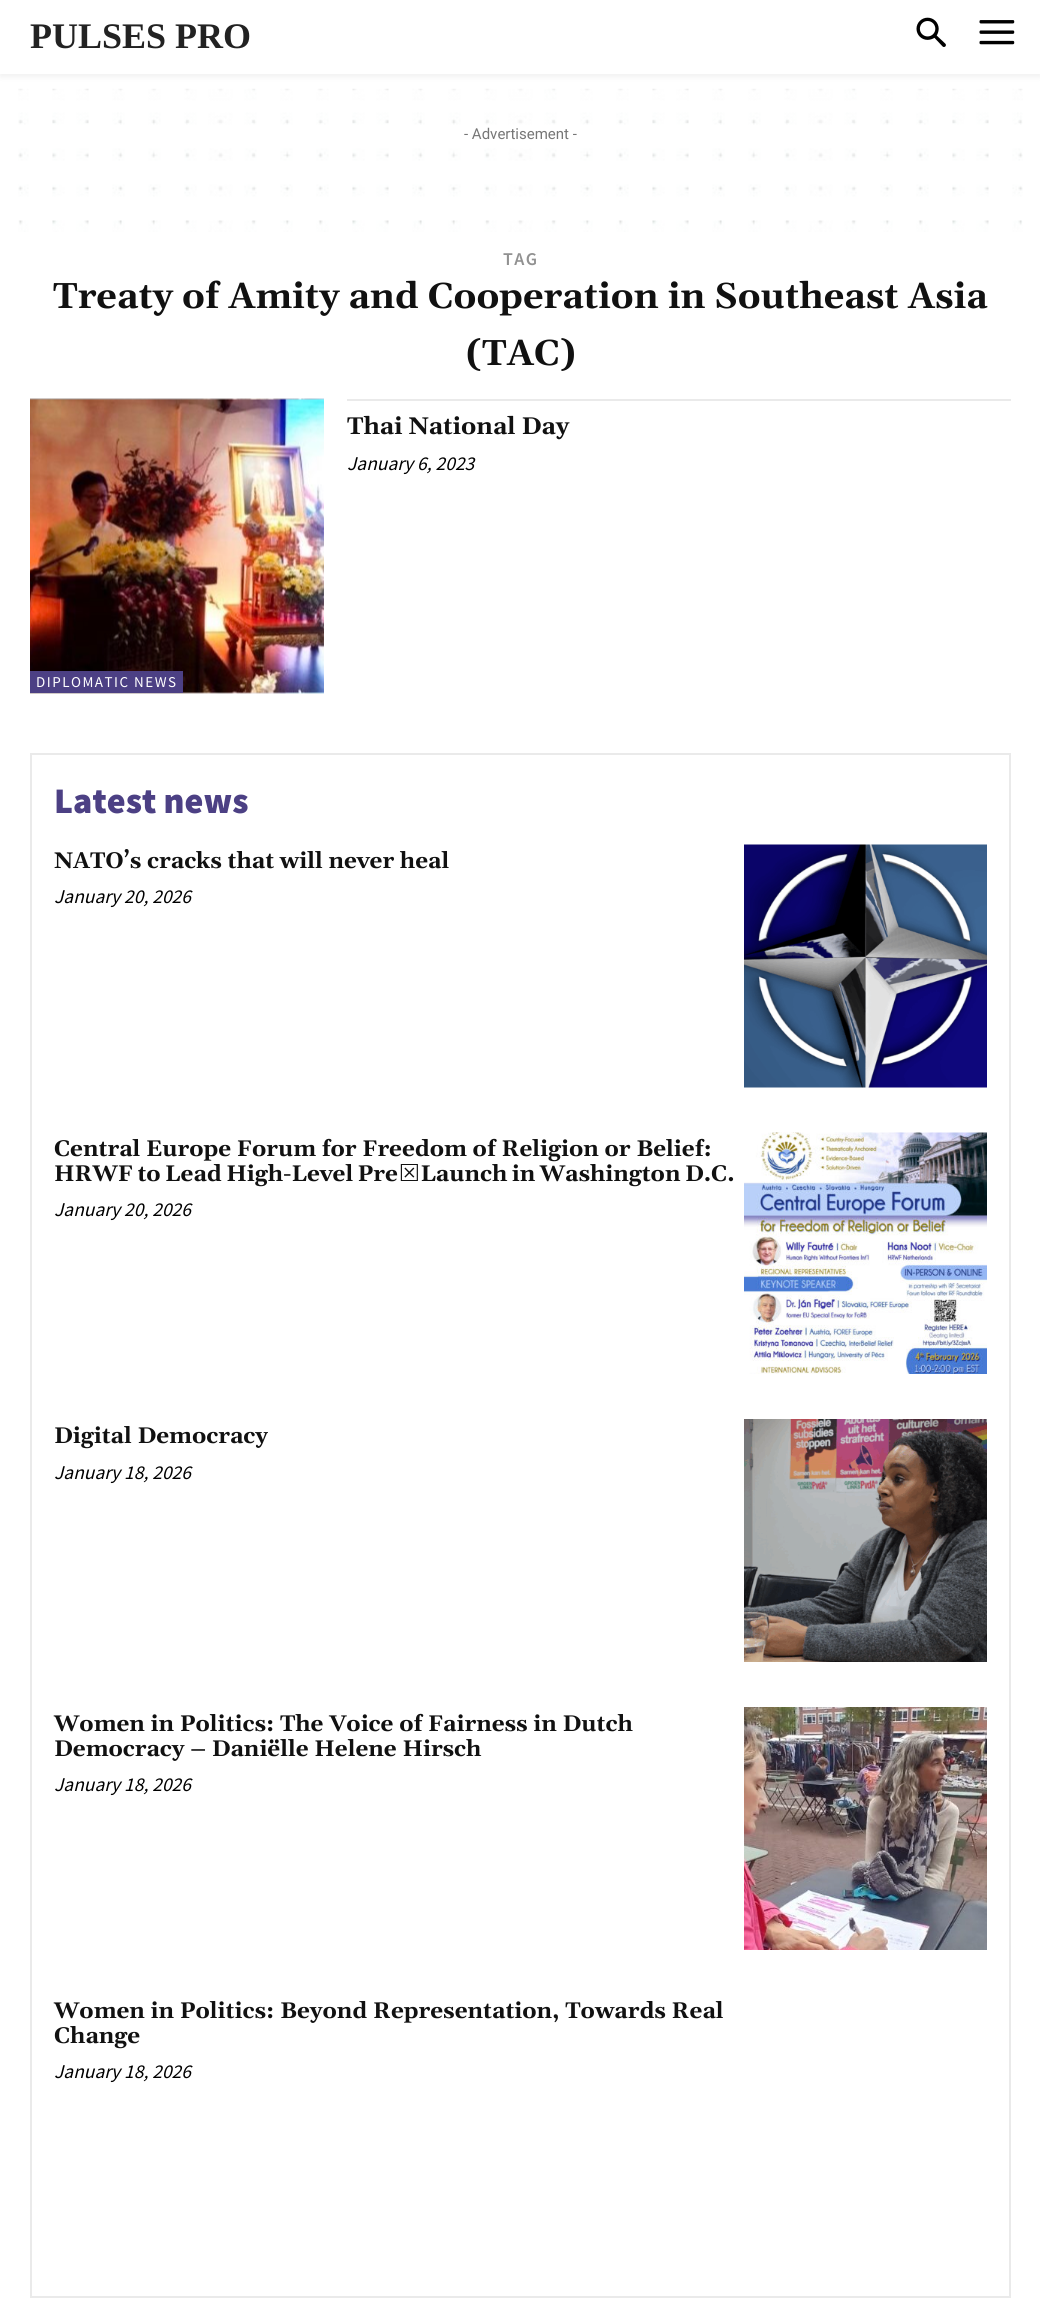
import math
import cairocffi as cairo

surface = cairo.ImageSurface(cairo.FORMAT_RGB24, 1040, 2302)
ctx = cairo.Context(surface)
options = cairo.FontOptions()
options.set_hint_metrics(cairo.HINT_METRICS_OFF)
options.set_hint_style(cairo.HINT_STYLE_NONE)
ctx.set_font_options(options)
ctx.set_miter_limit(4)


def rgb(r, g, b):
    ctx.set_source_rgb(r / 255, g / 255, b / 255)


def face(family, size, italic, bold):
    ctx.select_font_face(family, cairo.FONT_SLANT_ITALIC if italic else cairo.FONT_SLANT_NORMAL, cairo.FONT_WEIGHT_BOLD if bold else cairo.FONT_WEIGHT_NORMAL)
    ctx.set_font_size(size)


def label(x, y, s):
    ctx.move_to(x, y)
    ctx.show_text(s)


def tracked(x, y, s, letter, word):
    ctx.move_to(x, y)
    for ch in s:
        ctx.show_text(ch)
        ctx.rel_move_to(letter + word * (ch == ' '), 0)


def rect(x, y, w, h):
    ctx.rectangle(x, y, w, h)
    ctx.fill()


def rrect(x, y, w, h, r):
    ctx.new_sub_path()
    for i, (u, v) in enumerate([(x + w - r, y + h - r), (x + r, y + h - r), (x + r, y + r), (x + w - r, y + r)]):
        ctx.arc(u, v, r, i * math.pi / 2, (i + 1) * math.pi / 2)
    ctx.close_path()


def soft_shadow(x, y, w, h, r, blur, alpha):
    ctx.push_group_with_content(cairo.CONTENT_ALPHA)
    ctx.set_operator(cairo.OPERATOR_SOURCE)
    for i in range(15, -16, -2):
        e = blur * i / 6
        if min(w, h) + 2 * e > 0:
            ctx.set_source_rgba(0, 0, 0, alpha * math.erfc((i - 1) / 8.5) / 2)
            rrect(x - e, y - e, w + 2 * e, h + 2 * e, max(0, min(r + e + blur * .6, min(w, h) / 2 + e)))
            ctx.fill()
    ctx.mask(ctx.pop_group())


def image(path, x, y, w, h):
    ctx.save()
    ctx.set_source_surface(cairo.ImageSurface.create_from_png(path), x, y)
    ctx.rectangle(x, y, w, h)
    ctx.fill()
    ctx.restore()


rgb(255, 255, 255)
ctx.paint()
image('image0.png', 916, 17, 30, 30)
image('image1.png', 979, 20, 36, 25)
ctx.save()
ctx.set_fill_rule(cairo.FILL_RULE_EVEN_ODD)
ctx.new_path()
ctx.move_to(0, 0)
ctx.line_to(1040, 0)
ctx.line_to(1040, 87)
ctx.line_to(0, 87)
ctx.close_path()
ctx.move_to(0, 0)
ctx.line_to(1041, 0)
ctx.line_to(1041, 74)
ctx.line_to(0, 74)
ctx.close_path()
ctx.clip()
rgb(0, 0, 0)
soft_shadow(0, 3, 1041, 74, 0, 3, 0.06)
ctx.restore()
face('Liberation Serif', 36, 0, 1)
rgb(34, 34, 34)
label(30, 48, 'PULSES PRO')
image('image2.png', 18, 88, 1005, 144)
face('Roboto', 15, 0, 0)
rgb(118, 118, 118)
label(464, 139, '- Advertisement -')
face('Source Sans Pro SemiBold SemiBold', 18, 0, 0)
rgb(145, 145, 145)
tracked(503, 265, 'TAG', 1.5, 0)
face('Gelasio', 36, 0, 1)
rgb(17, 17, 17)
label(53, 308, 'Treaty of Amity and Cooperation in Southeast Asia')
label(466, 365, '(TAC)')
rgb(234, 234, 234)
rect(347, 399, 664, 2)
face('Gelasio', 24, 0, 1)
rgb(17, 17, 17)
label(347, 434, 'Thai National Day')
face('Source Sans Pro', 19.5, 1, 0)
rgb(0, 0, 0)
label(347, 470, 'January 6, 2023')
image('image3.png', 30, 398, 294, 296)
rgb(76, 64, 132)
rect(30, 671, 153, 22)
face('Source Sans Pro', 15, 0, 0)
rgb(255, 255, 255)
tracked(36, 687, 'DIPLOMATIC NEWS', 1.5, 0)
ctx.rectangle(31, 754, 979, 1543)
rgb(234, 234, 234)
ctx.stroke()
face('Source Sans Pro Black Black', 36, 0, 0)
rgb(76, 64, 132)
label(54, 813, 'Latest news')
face('Gelasio', 22.5, 0, 1)
rgb(17, 17, 17)
label(54, 868, 'NATO’s cracks that will never heal')
face('Source Sans Pro', 19.5, 1, 0)
rgb(0, 0, 0)
label(54, 903, 'January 20, 2026')
image('image4.png', 744, 844, 243, 244)
face('Gelasio', 22.5, 0, 1)
rgb(17, 17, 17)
label(54, 1156, 'Central Europe Forum for Freedom of Religion or Belief:')
tracked(54, 1181, 'HRWF to Lead High-Level Pre‑Launch in Washington D.C.', 0, -1.25)
face('Source Sans Pro', 19.5, 1, 0)
rgb(0, 0, 0)
label(54, 1216, 'January 20, 2026')
image('image5.png', 744, 1132, 243, 242)
face('Gelasio', 22.5, 0, 1)
rgb(17, 17, 17)
label(54, 1443, 'Digital Democracy')
face('Source Sans Pro', 19.5, 1, 0)
rgb(0, 0, 0)
label(54, 1479, 'January 18, 2026')
image('image6.png', 744, 1419, 243, 243)
face('Gelasio', 22.5, 0, 1)
rgb(17, 17, 17)
label(54, 1731, 'Women in Politics: The Voice of Fairness in Dutch')
label(54, 1756, 'Democracy – Daniëlle Helene Hirsch')
face('Source Sans Pro', 19.5, 1, 0)
rgb(0, 0, 0)
label(54, 1791, 'January 18, 2026')
image('image7.png', 744, 1707, 243, 243)
face('Gelasio', 22.5, 0, 1)
rgb(17, 17, 17)
label(54, 2018, 'Women in Politics: Beyond Representation, Towards Real')
label(54, 2043, 'Change')
face('Source Sans Pro', 19.5, 1, 0)
rgb(0, 0, 0)
label(54, 2078, 'January 18, 2026')
surface.write_to_png('render.png')
